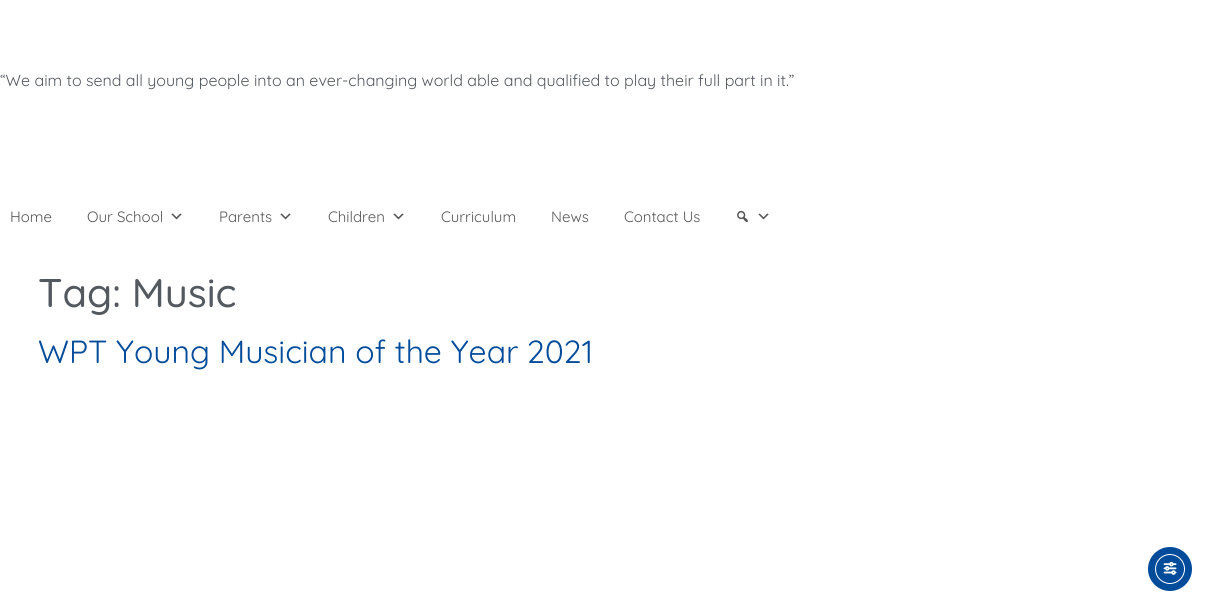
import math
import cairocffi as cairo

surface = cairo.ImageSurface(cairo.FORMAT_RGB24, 1216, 615)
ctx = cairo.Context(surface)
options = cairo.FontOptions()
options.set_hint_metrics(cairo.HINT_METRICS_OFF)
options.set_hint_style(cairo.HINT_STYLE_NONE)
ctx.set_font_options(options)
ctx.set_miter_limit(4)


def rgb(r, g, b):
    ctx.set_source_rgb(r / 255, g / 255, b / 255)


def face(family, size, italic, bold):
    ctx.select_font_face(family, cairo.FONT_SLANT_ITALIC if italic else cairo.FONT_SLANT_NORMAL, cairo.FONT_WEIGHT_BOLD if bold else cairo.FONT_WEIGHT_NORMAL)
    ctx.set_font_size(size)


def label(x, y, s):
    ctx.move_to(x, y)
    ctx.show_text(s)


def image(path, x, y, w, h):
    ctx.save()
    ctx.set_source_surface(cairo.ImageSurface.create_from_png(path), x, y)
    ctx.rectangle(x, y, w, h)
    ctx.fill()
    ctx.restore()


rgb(255, 255, 255)
ctx.paint()
face('Quicksand', 16, 0, 0)
rgb(84, 89, 95)
label(0, 86, '“We aim to send all young people into an ever-changing world able and qualified to play their full part in it.”')
face('Quicksand', 15, 0, 0)
rgb(85, 86, 88)
label(10, 222, 'Home')
label(87, 222, 'Our School')
image('image0.png', 171, 213, 11, 7)
label(219, 222, 'Parents')
image('image0.png', 280, 213, 11, 7)
label(328, 222, 'Children')
image('image0.png', 393, 213, 11, 7)
label(441, 222, 'Curriculum')
label(551, 222, 'News')
label(624, 222, 'Contact Us')
image('image1.png', 737, 210, 11, 12)
image('image0.png', 758, 213, 11, 7)
face('Quicksand Medium', 40, 0, 0)
rgb(84, 89, 95)
label(38, 307, 'Tag: Music')
face('Quicksand', 32, 0, 0)
rgb(0, 75, 154)
label(38, 363, 'WPT Young Musician of the Year 2021')
ctx.new_path()
ctx.arc(1170, 569, 22, 0, 2 * math.pi)
ctx.fill()
ctx.arc(1170, 569, 14.5, 0, 2 * math.pi)
rgb(255, 255, 255)
ctx.set_line_width(1)
ctx.stroke()
image('image2.png', 1163, 561, 14, 14)
surface.write_to_png('render.png')
